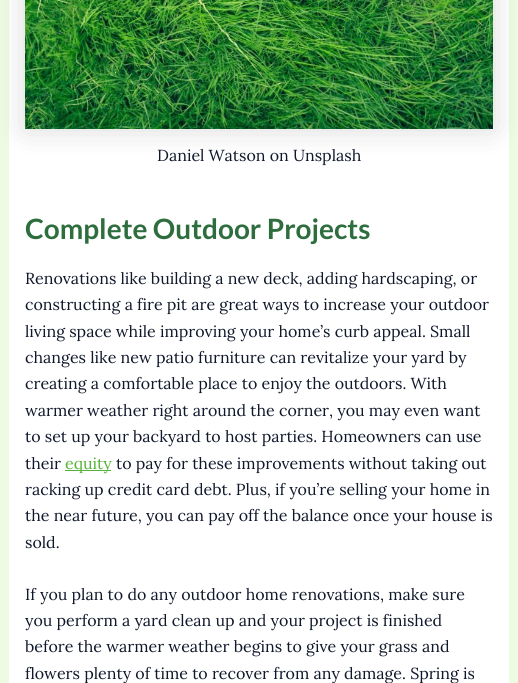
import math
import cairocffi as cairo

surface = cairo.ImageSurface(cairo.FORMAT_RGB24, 518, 683)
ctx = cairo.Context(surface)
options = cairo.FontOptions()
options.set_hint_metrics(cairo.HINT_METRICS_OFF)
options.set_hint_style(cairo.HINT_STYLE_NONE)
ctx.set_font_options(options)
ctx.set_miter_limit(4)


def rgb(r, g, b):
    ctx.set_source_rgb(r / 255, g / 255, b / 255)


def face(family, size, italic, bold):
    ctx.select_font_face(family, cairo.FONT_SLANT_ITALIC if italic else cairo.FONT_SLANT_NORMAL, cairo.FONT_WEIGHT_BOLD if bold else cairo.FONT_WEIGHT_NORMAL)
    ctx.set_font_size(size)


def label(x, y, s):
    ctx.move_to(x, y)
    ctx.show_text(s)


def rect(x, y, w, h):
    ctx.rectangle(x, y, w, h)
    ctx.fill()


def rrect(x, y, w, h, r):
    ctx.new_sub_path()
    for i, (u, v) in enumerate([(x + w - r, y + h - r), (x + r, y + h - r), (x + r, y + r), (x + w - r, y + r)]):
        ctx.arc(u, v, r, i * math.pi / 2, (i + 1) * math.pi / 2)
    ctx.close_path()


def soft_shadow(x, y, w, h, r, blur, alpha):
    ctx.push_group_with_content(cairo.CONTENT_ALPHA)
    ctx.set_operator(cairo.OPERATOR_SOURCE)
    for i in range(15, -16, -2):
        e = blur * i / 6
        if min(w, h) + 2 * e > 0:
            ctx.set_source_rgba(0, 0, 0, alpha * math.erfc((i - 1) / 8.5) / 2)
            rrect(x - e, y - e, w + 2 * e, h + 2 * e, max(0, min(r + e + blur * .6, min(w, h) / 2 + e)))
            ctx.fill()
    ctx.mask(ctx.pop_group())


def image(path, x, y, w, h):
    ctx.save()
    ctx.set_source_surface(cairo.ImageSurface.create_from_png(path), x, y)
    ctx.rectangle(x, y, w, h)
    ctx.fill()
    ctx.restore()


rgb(237, 251, 226)
ctx.paint()
rgb(255, 255, 255)
rect(9, 0, 500, 683)
rgb(0, 0, 0)
soft_shadow(25, -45, 468, 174, 0, 15, 0.15)
image('image0.png', 25, 0, 468, 129)
face('Lora', 16, 0, 0)
rgb(15, 23, 42)
label(157, 161, 'Daniel Watson on Unsplash')
face('Lato', 28, 0, 1)
rgb(46, 110, 62)
label(25, 239, 'Complete Outdoor Projects')
face('Lora', 16, 0, 0)
rgb(15, 23, 42)
label(25, 284, 'Renovations like building a new deck, adding hardscaping, or')
label(25, 310, 'constructing a fire pit are great ways to increase your outdoor')
label(25, 337, 'living space while improving your home’s curb appeal. Small')
label(25, 363, 'changes like new patio furniture can revitalize your yard by')
label(25, 389, 'creating a comfortable place to enjoy the outdoors. With')
label(25, 416, 'warmer weather right around the corner, you may even want')
label(25, 442, 'to set up your backyard to host parties. Homeowners can use')
label(25, 469, 'their')
rgb(84, 180, 53)
rect(65, 470, 46, 1)
label(65, 469, 'equity')
rgb(15, 23, 42)
label(116, 469, 'to pay for these improvements without taking out')
label(25, 495, 'racking up credit card debt. Plus, if you’re selling your home in')
label(25, 521, 'the near future, you can pay off the balance once your house is')
label(25, 548, 'sold.')
label(25, 600, 'If you plan to do any outdoor home renovations, make sure')
label(25, 626, 'you perform a yard clean up and your project is finished')
label(25, 652, 'before the warmer weather begins to give your grass and')
label(25, 679, 'flowers plenty of time to recover from any damage. Spring is')
surface.write_to_png('render.png')
